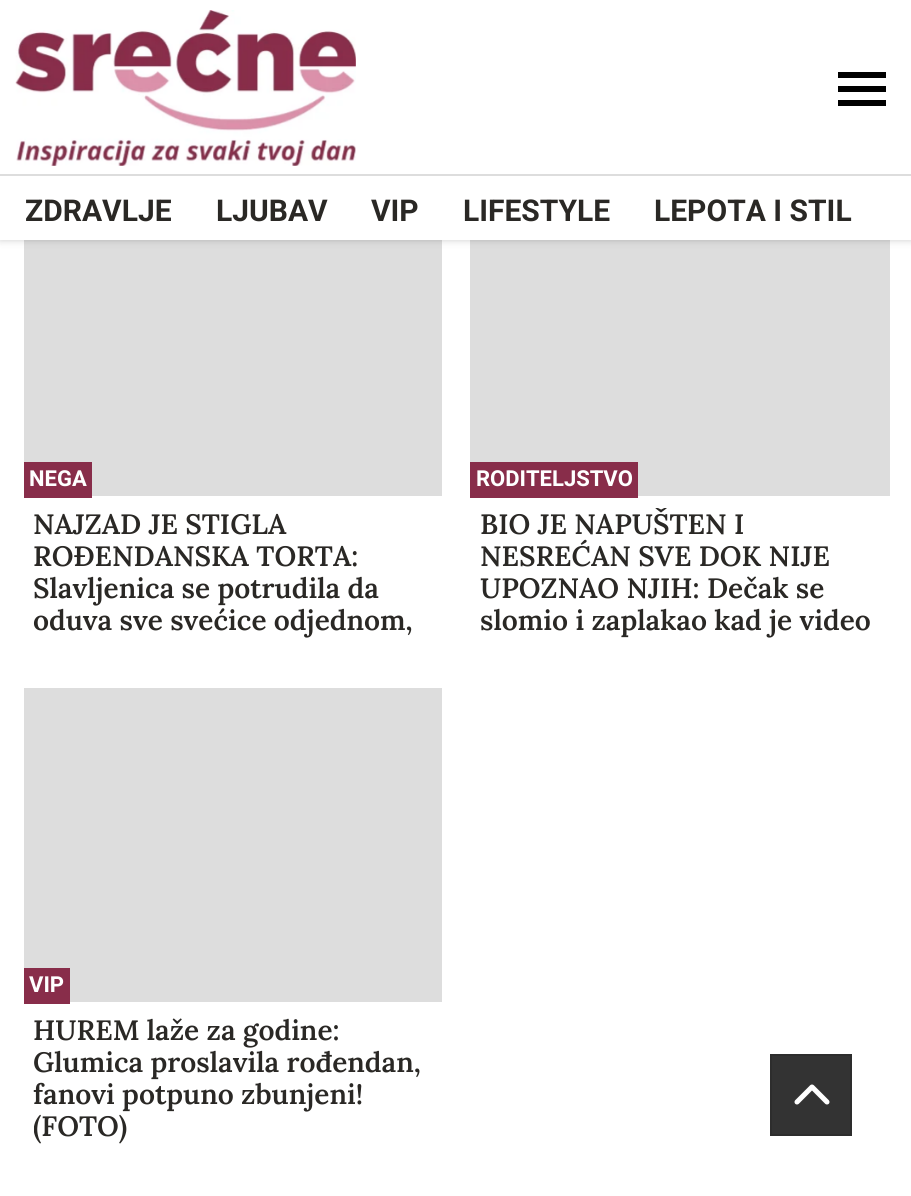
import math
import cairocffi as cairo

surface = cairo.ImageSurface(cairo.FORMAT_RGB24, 911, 1196)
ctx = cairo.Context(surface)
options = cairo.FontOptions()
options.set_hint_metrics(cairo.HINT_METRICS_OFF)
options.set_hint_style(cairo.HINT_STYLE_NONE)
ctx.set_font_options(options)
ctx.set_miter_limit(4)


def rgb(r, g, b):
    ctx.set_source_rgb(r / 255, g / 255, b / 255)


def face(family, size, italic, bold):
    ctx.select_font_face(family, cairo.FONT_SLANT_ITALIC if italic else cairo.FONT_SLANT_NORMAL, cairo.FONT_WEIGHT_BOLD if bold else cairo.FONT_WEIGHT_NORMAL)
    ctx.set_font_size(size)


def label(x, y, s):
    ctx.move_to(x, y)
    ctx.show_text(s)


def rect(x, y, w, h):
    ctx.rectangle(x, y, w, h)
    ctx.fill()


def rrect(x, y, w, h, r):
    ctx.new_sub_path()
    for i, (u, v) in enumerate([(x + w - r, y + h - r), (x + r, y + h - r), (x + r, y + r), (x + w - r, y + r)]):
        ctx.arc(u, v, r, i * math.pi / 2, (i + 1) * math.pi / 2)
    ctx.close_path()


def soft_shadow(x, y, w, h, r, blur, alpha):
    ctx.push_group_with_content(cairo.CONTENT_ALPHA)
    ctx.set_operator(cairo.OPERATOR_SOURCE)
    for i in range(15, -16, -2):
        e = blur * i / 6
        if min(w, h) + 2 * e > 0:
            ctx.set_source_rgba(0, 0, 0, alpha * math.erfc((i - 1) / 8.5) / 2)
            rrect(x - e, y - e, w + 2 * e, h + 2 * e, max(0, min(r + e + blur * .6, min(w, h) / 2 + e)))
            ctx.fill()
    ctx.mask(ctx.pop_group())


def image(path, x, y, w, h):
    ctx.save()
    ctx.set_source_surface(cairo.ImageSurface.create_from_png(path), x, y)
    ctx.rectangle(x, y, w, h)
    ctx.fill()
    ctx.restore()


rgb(255, 255, 255)
ctx.paint()
rgb(221, 221, 221)
rect(24, 240, 418, 256)
rect(470, 240, 420, 256)
rgb(0, 0, 0)
soft_shadow(0, 0, 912, 240, 0, 4, 0.2)
rgb(255, 255, 255)
rect(0, 0, 911, 240)
rgb(221, 221, 221)
rect(0, 174, 911, 2)
image('image0.png', 15, 10, 341, 156)
rgb(0, 0, 0)
rect(838, 72, 48, 6)
rect(838, 86, 48, 6)
rect(838, 100, 48, 6)
face('Roboto', 30, 0, 1)
rgb(42, 40, 37)
label(25, 221, 'ZDRAVLJE')
label(216, 221, 'LJUBAV')
label(371, 221, 'VIP')
label(463, 221, 'LIFESTYLE')
label(654, 221, 'LEPOTA I STIL')
rgb(136, 45, 74)
rect(24, 462, 68, 36)
face('Heebo', 22, 0, 1)
rgb(255, 255, 255)
label(29, 486, 'NEGA')
face('Lora SemiBold', 28, 0, 0)
rgb(42, 40, 37)
label(33, 534, 'NAJZAD JE STIGLA')
label(33, 566, 'ROĐENDANSKA TORTA:')
label(33, 598, 'Slavljenica se potrudila da')
label(33, 630, 'oduva sve svećice odjednom,')
rgb(136, 45, 74)
rect(470, 462, 168, 36)
face('Heebo', 22, 0, 1)
rgb(255, 255, 255)
label(476, 486, 'RODITELJSTVO')
ctx.save()
ctx.rectangle(480, 508, 400, 132)
ctx.clip()
face('Lora SemiBold', 28, 0, 0)
rgb(42, 40, 37)
label(480, 534, 'BIO JE NAPUŠTEN I')
ctx.restore()
face('Lora SemiBold', 28, 0, 0)
rgb(42, 40, 37)
label(480, 566, 'NESREĆAN SVE DOK NIJE')
label(480, 598, 'UPOZNAO NJIH: Dečak se')
label(480, 630, 'slomio i zaplakao kad je video')
rgb(221, 221, 221)
rect(24, 688, 418, 314)
rgb(136, 45, 74)
rect(24, 968, 46, 36)
face('Heebo', 22, 0, 1)
rgb(255, 255, 255)
label(29, 992, 'VIP')
face('Lora SemiBold', 28, 0, 0)
rgb(42, 40, 37)
label(33, 1040, 'HUREM laže za godine:')
label(33, 1072, 'Glumica proslavila rođendan,')
label(33, 1104, 'fanovi potpuno zbunjeni!')
ctx.save()
ctx.rectangle(34, 1014, 398, 132)
ctx.clip()
label(33, 1136, '(FOTO)')
ctx.restore()
rgb(51, 51, 51)
ctx.rectangle(771, 1055, 80, 80)
ctx.fill_preserve()
rgb(45, 45, 45)
ctx.stroke()
image('image1.png', 794, 1084, 36, 21)
surface.write_to_png('render.png')
